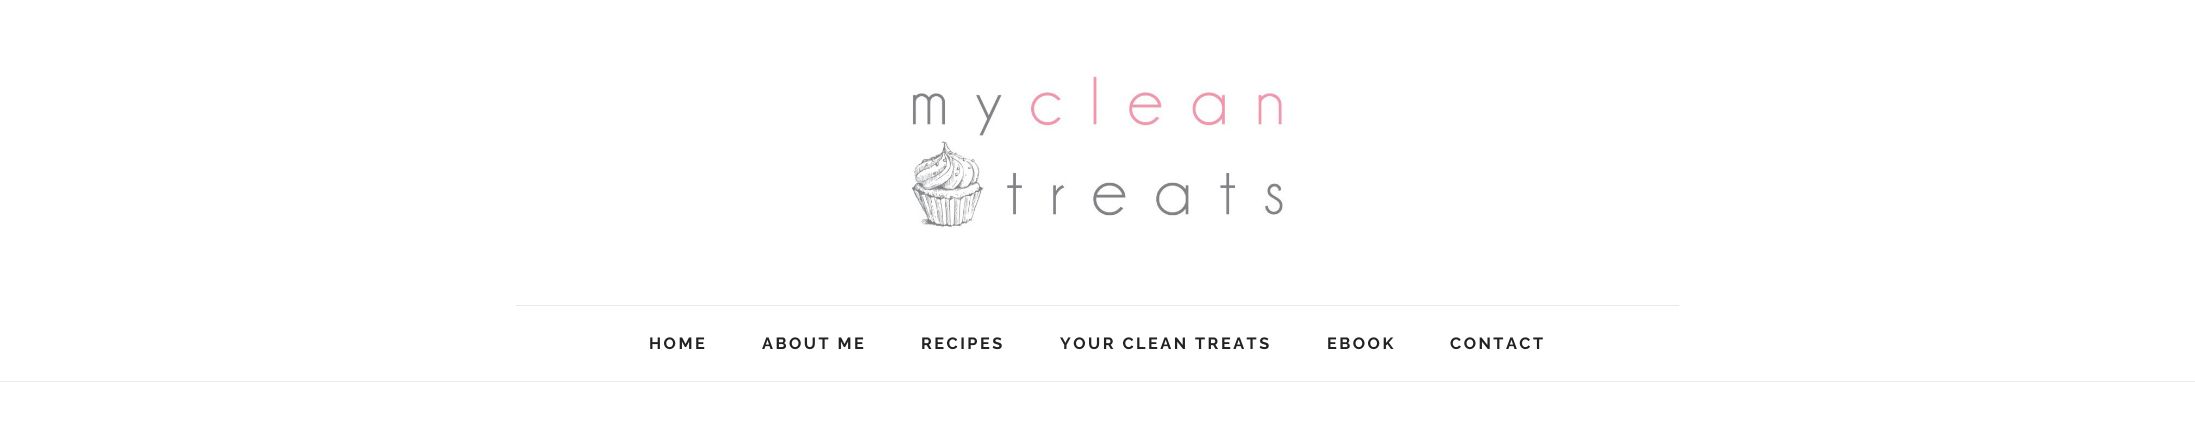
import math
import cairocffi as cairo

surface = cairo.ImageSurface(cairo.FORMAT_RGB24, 2195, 434)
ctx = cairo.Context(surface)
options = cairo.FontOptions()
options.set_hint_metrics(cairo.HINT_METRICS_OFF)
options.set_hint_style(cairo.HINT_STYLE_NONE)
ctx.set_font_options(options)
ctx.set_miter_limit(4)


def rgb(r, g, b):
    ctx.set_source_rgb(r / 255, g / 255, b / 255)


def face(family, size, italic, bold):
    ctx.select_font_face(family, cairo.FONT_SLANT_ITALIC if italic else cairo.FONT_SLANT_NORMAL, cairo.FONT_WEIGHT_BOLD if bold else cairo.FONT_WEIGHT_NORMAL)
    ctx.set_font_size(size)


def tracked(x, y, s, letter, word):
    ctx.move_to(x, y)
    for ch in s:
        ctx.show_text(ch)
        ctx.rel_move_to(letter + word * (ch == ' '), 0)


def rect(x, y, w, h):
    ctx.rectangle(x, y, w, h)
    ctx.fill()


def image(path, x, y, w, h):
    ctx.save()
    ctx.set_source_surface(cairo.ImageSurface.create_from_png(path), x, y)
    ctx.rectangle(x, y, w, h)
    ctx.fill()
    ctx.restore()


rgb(255, 255, 255)
ctx.paint()
image('image0.png', 911, 75, 373, 154)
rgb(233, 233, 233)
rect(516, 305, 1163, 1)
face('Raleway', 16.25, 0, 1)
rgb(34, 34, 34)
tracked(649, 349, 'HOME', 2.5, 0)
tracked(762, 349, 'ABOUT ME', 2.5, 0)
tracked(921, 349, 'RECIPES', 2.5, 0)
tracked(1060, 349, 'YOUR CLEAN TREATS', 2.5, 0)
tracked(1327, 349, 'EBOOK', 2.5, 0)
tracked(1450, 349, 'CONTACT', 2.5, 0)
rgb(233, 233, 233)
rect(0, 381, 2195, 1)
surface.write_to_png('render.png')
